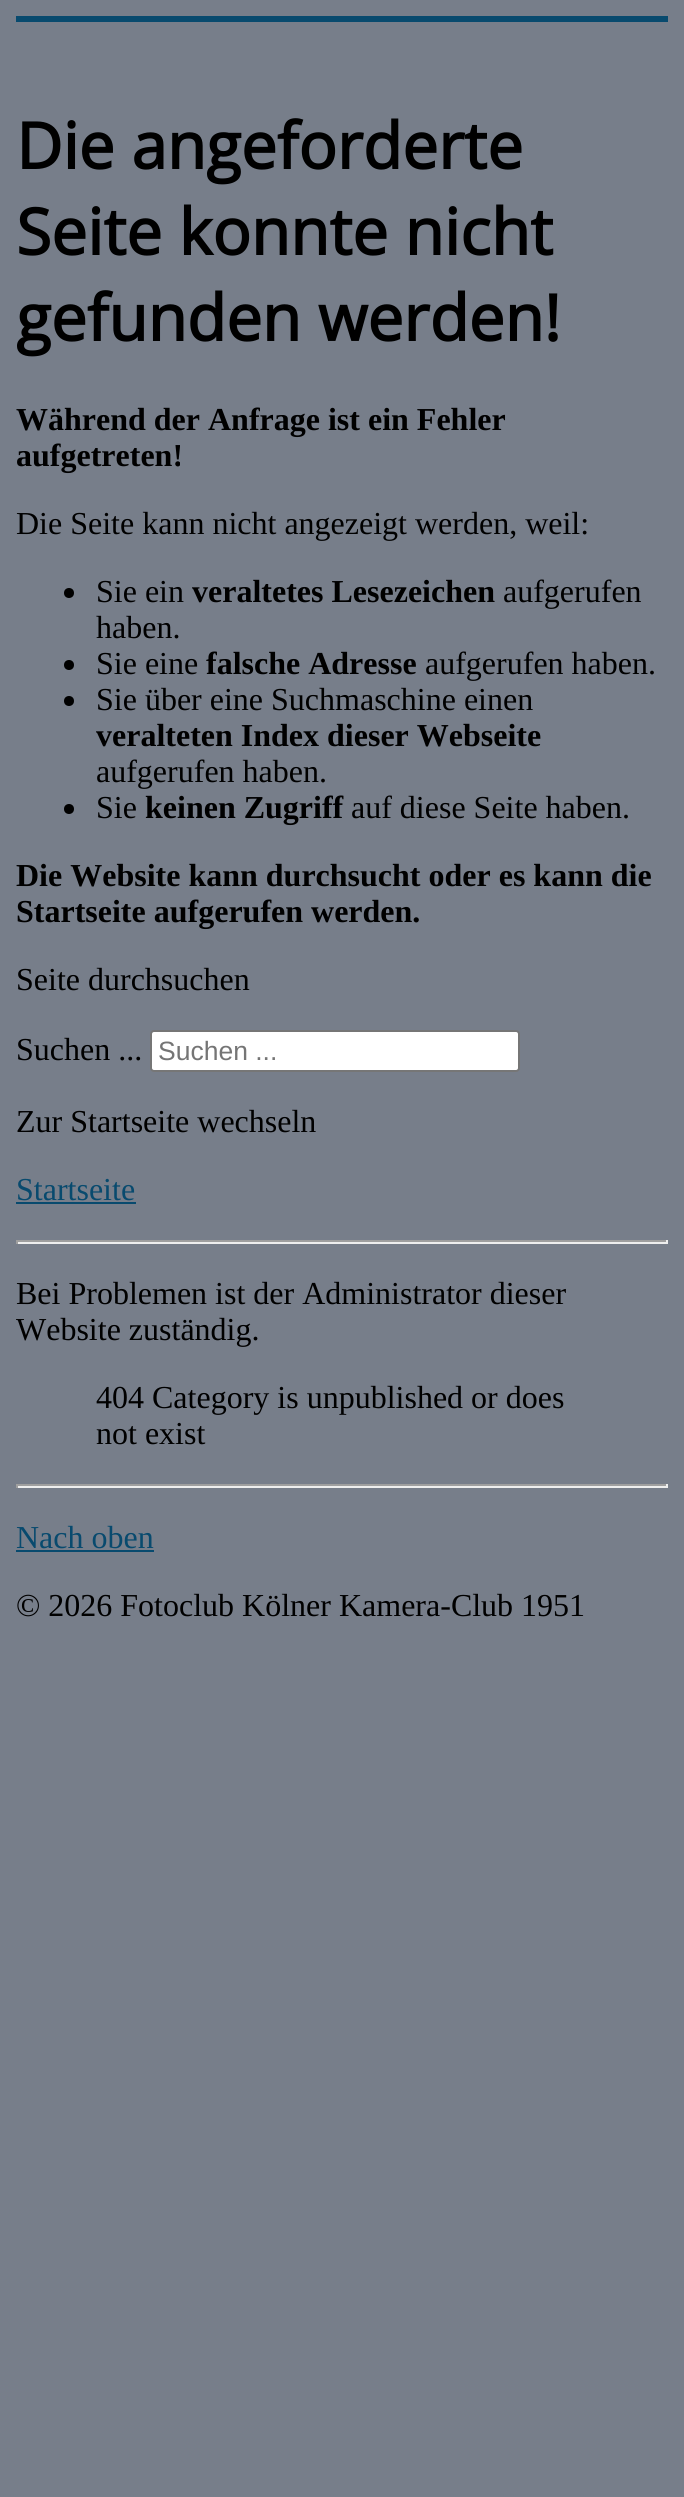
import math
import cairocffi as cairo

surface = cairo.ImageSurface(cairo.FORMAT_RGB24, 684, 2497)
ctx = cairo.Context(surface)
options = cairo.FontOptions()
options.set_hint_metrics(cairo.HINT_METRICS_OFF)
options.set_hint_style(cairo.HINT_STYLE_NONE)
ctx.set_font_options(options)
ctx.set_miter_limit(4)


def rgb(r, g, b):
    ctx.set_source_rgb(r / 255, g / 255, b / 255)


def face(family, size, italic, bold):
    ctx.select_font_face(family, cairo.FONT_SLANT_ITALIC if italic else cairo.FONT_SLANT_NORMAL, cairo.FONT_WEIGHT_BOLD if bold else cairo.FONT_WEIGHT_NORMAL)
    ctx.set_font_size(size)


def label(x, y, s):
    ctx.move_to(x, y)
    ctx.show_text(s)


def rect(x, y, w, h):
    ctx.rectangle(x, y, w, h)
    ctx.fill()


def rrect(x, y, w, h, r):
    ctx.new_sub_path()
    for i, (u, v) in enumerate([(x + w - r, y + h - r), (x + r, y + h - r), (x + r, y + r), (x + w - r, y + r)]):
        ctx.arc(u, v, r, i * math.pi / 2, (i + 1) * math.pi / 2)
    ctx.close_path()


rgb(119, 126, 138)
ctx.paint()
rgb(8, 74, 110)
rect(16, 16, 652, 6)
face('Open Sans', 64, 0, 1)
rgb(0, 0, 0)
label(16, 169, 'Die angeforderte')
label(16, 255, 'Seite konnte nicht')
label(16, 341, 'gefunden werden!')
face('Liberation Serif', 32, 0, 1)
label(16, 430, 'Während der Anfrage ist ein Fehler')
label(16, 466, 'aufgetreten!')
face('Liberation Serif', 32, 0, 0)
label(16, 534, 'Die Seite kann nicht angezeigt werden, weil:')
ctx.new_path()
ctx.arc(69, 593, 5, 0, 2 * math.pi)
ctx.fill()
label(96, 602, 'Sie ein')
face('Liberation Serif', 32, 0, 1)
label(192, 602, 'veraltetes Lesezeichen')
face('Liberation Serif', 32, 0, 0)
label(503, 602, 'aufgerufen')
label(96, 638, 'haben.')
ctx.new_path()
ctx.arc(69, 665, 5, 0, 2 * math.pi)
ctx.fill()
label(96, 674, 'Sie eine')
face('Liberation Serif', 32, 0, 1)
label(206, 674, 'falsche Adresse')
face('Liberation Serif', 32, 0, 0)
label(425, 674, 'aufgerufen haben.')
ctx.new_path()
ctx.arc(69, 701, 5, 0, 2 * math.pi)
ctx.fill()
label(96, 710, 'Sie über eine Suchmaschine einen')
face('Liberation Serif', 32, 0, 1)
label(96, 746, 'veralteten Index dieser Webseite')
face('Liberation Serif', 32, 0, 0)
label(96, 782, 'aufgerufen haben.')
ctx.new_path()
ctx.arc(69, 809, 5, 0, 2 * math.pi)
ctx.fill()
label(96, 818, 'Sie')
face('Liberation Serif', 32, 0, 1)
label(145, 818, 'keinen Zugriff')
face('Liberation Serif', 32, 0, 0)
label(351, 818, 'auf diese Seite haben.')
face('Liberation Serif', 32, 0, 1)
label(16, 886, 'Die Website kann durchsucht oder es kann die')
label(16, 922, 'Startseite aufgerufen werden.')
face('Liberation Serif', 32, 0, 0)
label(16, 990, 'Seite durchsuchen')
label(16, 1060, 'Suchen ...')
rgb(255, 255, 255)
rrect(151, 1031, 368, 40, 3)
ctx.fill_preserve()
rgb(118, 118, 118)
ctx.stroke()
face('Liberation Sans', 26.5, 0, 0)
rgb(117, 117, 117)
label(158, 1060, 'Suchen ...')
face('Liberation Serif', 32, 0, 0)
rgb(0, 0, 0)
label(16, 1132, 'Zur Startseite wechseln')
rgb(8, 74, 110)
label(16, 1200, 'Startseite')
rect(16, 1202, 120, 2)
rgb(159, 159, 159)
rect(16, 1240, 652, 2)
rgb(238, 238, 238)
rect(666, 1240, 2, 4)
rect(16, 1242, 652, 2)
rgb(159, 159, 159)
rect(16, 1240, 2, 4)
rgb(0, 0, 0)
label(16, 1304, 'Bei Problemen ist der Administrator dieser')
label(16, 1340, 'Website zuständig.')
label(96, 1408, '404 Category is unpublished or does')
label(96, 1444, 'not exist')
rgb(159, 159, 159)
rect(16, 1484, 652, 2)
rgb(238, 238, 238)
rect(666, 1484, 2, 4)
rect(16, 1486, 652, 2)
rgb(159, 159, 159)
rect(16, 1484, 2, 4)
rgb(8, 74, 110)
label(16, 1548, 'Nach oben')
rect(16, 1550, 138, 2)
rgb(0, 0, 0)
label(16, 1616, '© 2026 Fotoclub Kölner Kamera-Club 1951')
surface.write_to_png('render.png')
